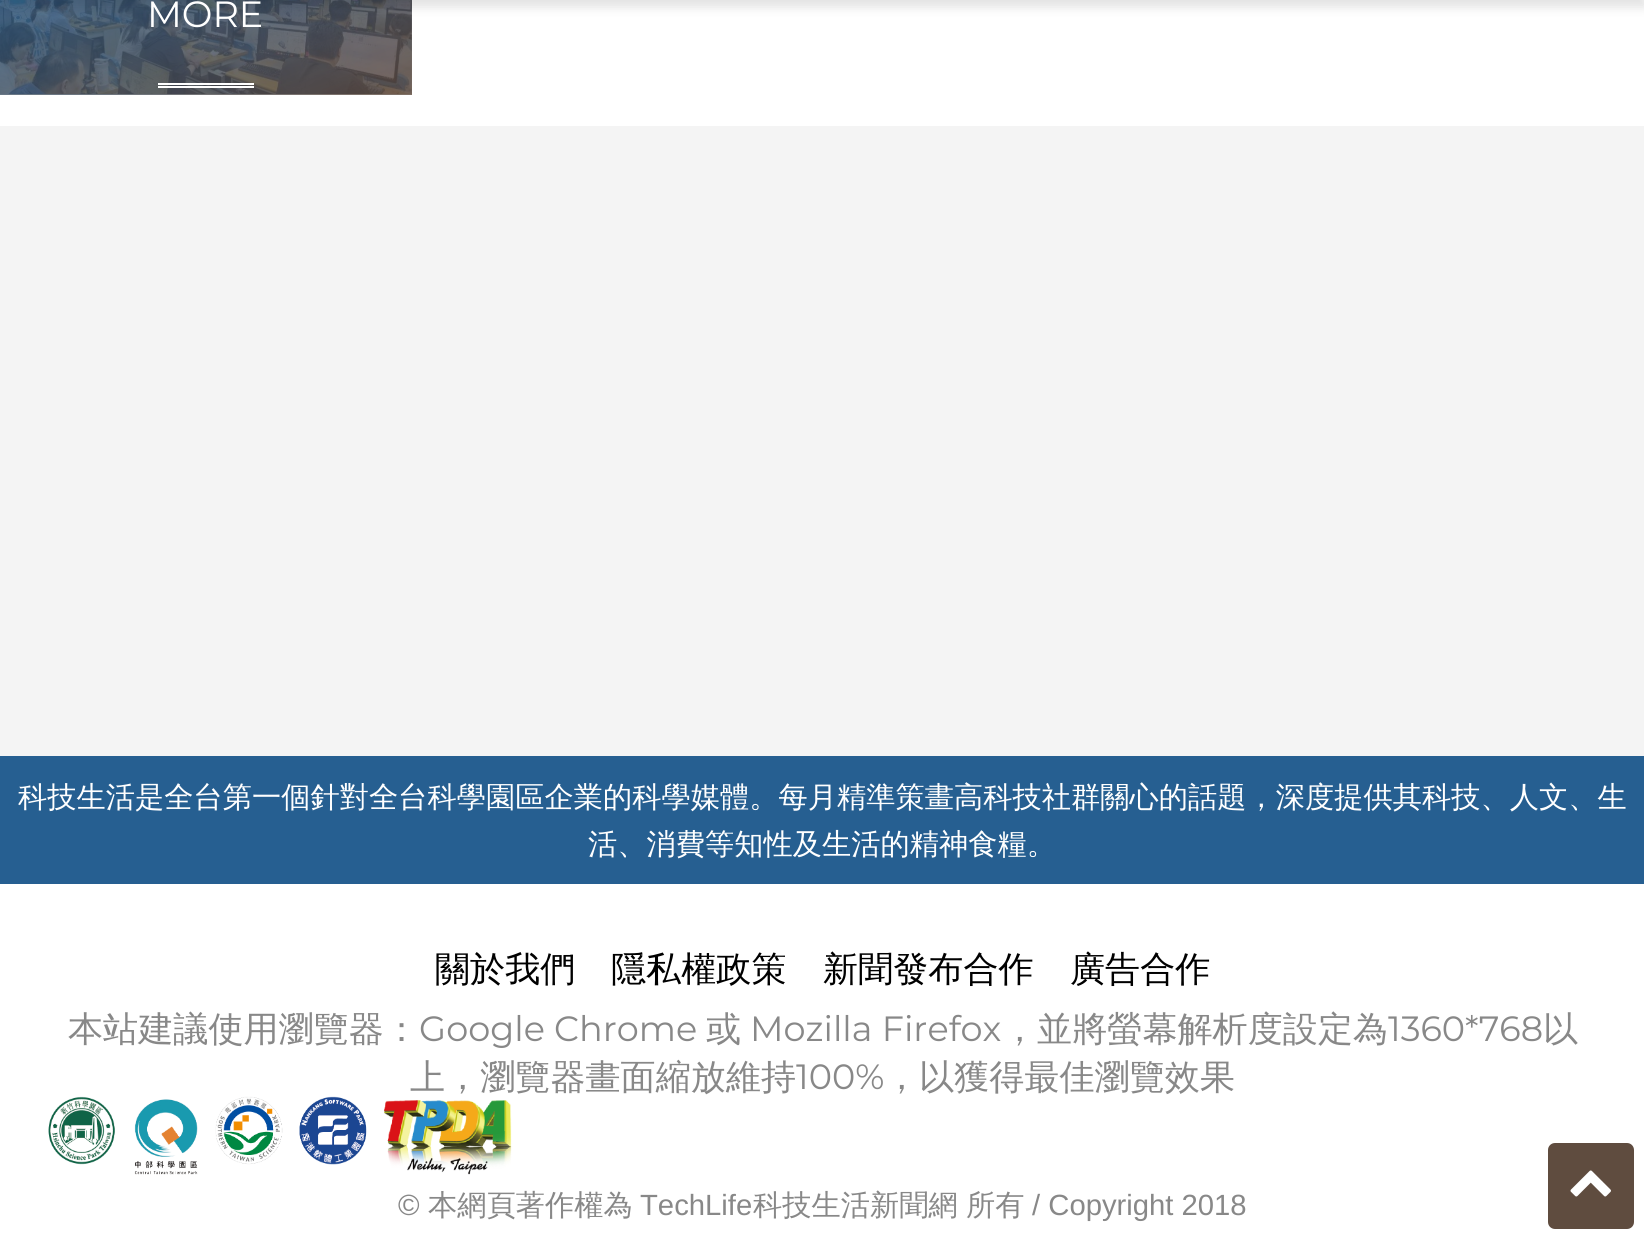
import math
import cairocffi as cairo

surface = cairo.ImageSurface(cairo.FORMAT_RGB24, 1644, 1239)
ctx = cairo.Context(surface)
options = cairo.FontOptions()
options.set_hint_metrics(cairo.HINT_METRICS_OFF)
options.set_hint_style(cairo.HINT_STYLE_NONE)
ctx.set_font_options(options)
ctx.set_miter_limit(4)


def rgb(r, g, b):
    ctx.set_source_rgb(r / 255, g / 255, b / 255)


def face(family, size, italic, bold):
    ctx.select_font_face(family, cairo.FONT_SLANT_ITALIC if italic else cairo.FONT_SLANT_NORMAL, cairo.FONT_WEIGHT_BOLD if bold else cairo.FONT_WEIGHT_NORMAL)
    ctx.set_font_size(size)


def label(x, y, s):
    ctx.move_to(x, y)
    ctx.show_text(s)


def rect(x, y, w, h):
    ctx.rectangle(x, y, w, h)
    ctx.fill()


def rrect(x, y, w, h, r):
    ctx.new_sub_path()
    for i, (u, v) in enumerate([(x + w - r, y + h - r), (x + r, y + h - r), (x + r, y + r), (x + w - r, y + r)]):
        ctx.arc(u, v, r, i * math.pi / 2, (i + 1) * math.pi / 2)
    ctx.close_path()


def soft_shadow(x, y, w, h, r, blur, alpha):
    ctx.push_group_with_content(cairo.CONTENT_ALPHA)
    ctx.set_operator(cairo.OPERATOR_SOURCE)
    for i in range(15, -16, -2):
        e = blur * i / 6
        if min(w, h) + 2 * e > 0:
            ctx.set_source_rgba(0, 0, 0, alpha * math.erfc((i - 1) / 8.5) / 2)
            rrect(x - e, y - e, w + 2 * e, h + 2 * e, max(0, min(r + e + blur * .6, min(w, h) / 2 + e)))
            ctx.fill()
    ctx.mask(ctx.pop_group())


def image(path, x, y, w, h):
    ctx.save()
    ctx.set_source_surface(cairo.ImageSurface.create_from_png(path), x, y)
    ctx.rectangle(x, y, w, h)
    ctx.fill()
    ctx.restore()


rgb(255, 255, 255)
ctx.paint()
image('image0.png', 0, 0, 412, 94)
gradient = cairo.LinearGradient(153, -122, 258, 153)
gradient.add_color_stop_rgba(0, 0.149, 0.373, 0.569, 0.8)
gradient.add_color_stop_rgba(1, 0.373, 0.298, 0.247, 0.8)
ctx.set_source(gradient)
rect(0, 0, 412, 95)
rgb(0, 0, 0)
soft_shadow(0, -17, 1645, 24, 0, 5.5, 0.12)
face('Montserrat Thin', 36.5, 0, 0)
rgb(255, 255, 255)
label(147, 27, 'MORE')
rect(158, 83, 96, 2)
rect(158, 86, 96, 2)
rgb(244, 244, 244)
rect(0, 126, 1644, 630)
rgb(38, 95, 145)
rect(0, 756, 1644, 128)
face('WenQuanYi Zen Hei Medium', 29.25, 0, 0)
rgb(255, 255, 255)
label(18, 807, '科技生活是全台第一個針對全台科學園區企業的科學媒體。每月精準策畫高科技社群關心的話題，深度提供其科技、人文、生')
label(588, 854, '活、消費等知性及生活的精神食糧。')
face('WenQuanYi Zen Hei Medium', 35.1, 0, 0)
rgb(0, 0, 0)
label(435, 981, '關於我們')
label(611, 981, '隱私權政策')
label(823, 981, '新聞發布合作')
label(1070, 981, '廣告合作')
rgb(136, 136, 136)
label(68, 1041, '本站建議使用瀏覽器：')
face('Montserrat Thin', 35.1, 0, 0)
label(419, 1041, 'Google Chrome')
face('WenQuanYi Zen Hei Medium', 35.1, 0, 0)
label(706, 1041, '或')
face('Montserrat Thin', 35.1, 0, 0)
label(750, 1041, 'Mozilla Firefox')
face('WenQuanYi Zen Hei Medium', 35.1, 0, 0)
label(1002, 1041, '，並將螢幕解析度設定為')
face('Montserrat Thin', 35.1, 0, 0)
label(1388, 1041, '1360*768')
face('WenQuanYi Zen Hei Medium', 35.1, 0, 0)
label(1543, 1041, '以')
label(410, 1089, '上，瀏覽器畫面縮放維持')
face('Montserrat Thin', 35.1, 0, 0)
label(796, 1089, '100%')
face('WenQuanYi Zen Hei Medium', 35.1, 0, 0)
label(884, 1089, '，以獲得最佳瀏覽效果')
image('image1.png', 48, 1096, 464, 79)
face('Liberation Sans', 29.25, 0, 0)
label(398, 1215, '©')
face('WenQuanYi Zen Hei Medium', 29.25, 0, 0)
label(428, 1215, '本網頁著作權為')
face('Liberation Sans', 29.25, 0, 0)
label(640, 1215, 'TechLife')
face('WenQuanYi Zen Hei Medium', 29.25, 0, 0)
label(753, 1215, '科技生活新聞網')
label(966, 1215, '所有')
face('Liberation Sans', 29.25, 0, 0)
label(1032, 1215, '/ Copyright 2018')
rgb(95, 76, 63)
rrect(1548, 1143, 86, 86, 7)
ctx.fill()
image('image2.png', 1570, 1170, 41, 27)
surface.write_to_png('render.png')
